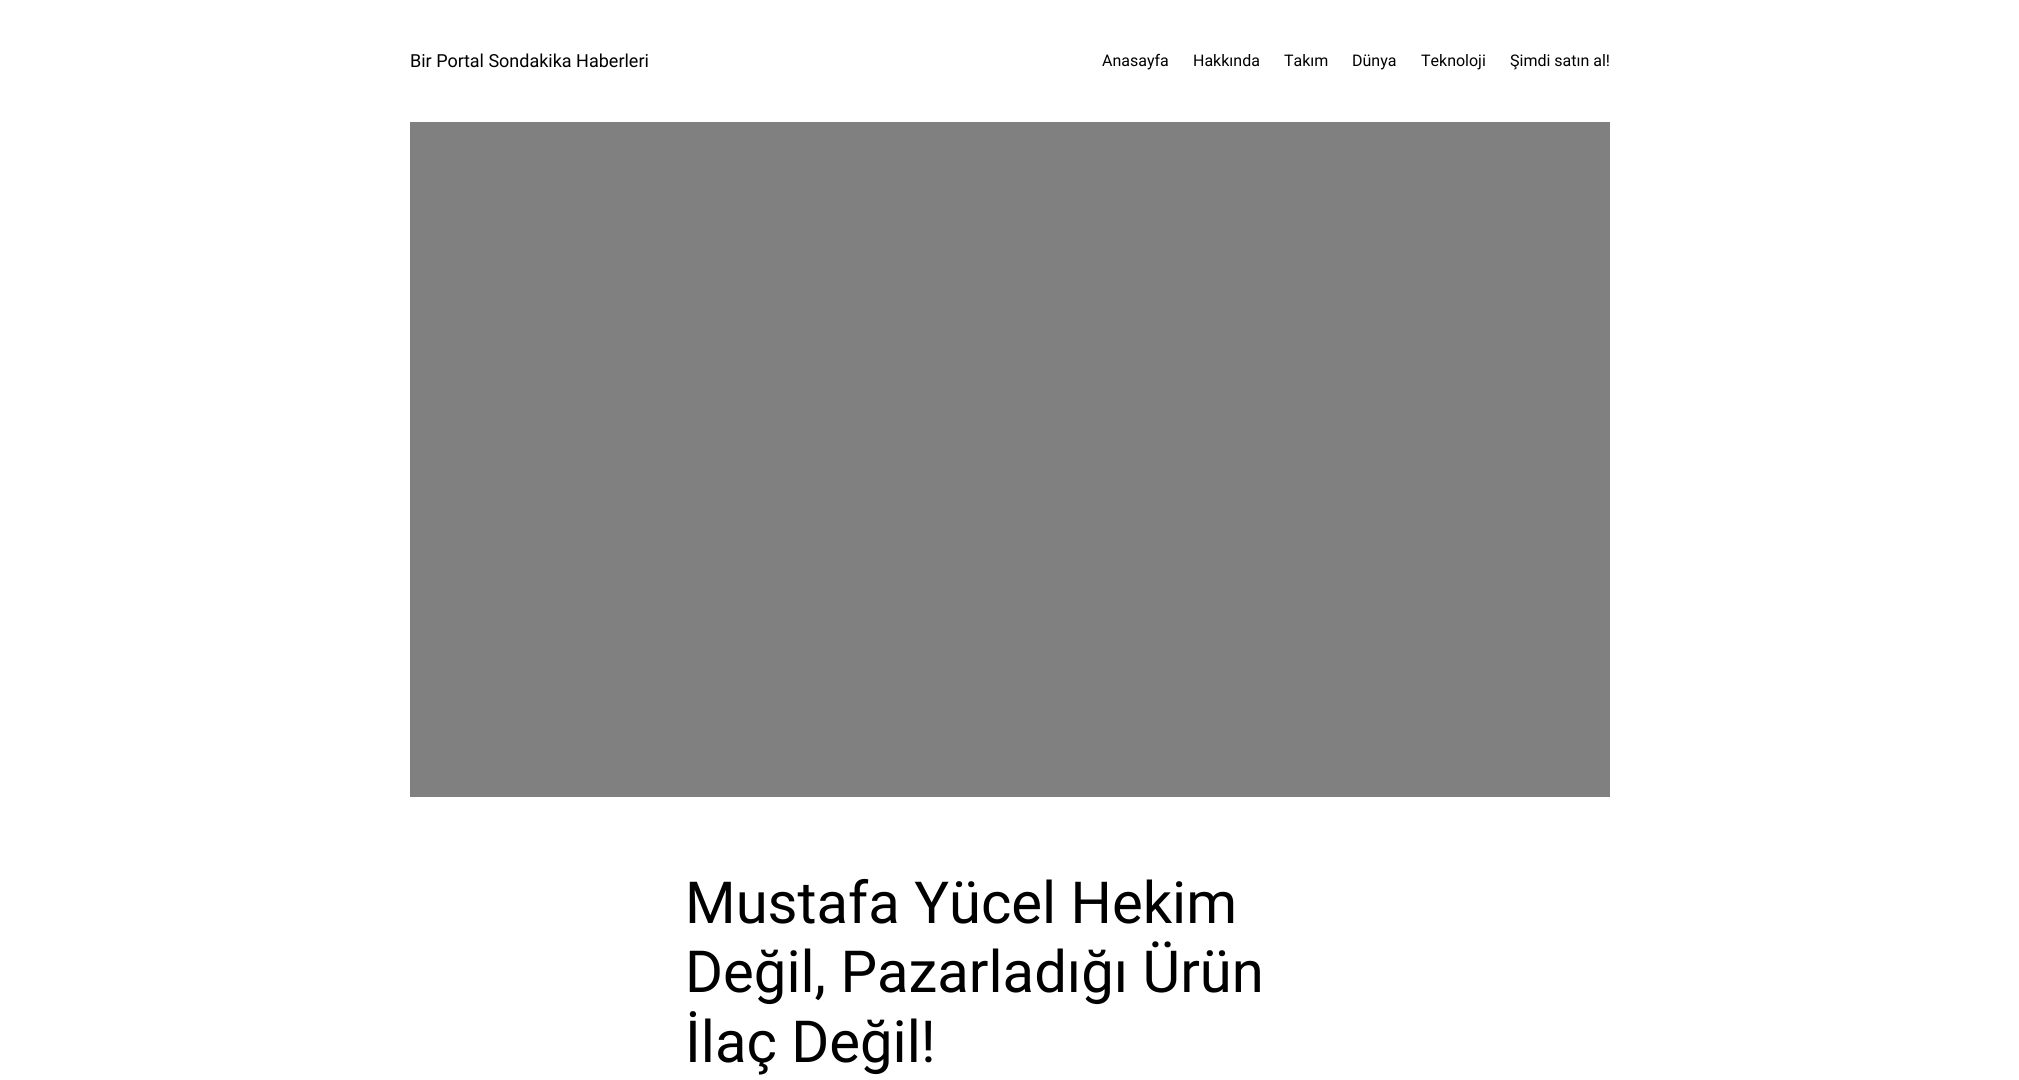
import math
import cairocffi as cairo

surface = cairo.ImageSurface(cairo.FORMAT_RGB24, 2019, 1080)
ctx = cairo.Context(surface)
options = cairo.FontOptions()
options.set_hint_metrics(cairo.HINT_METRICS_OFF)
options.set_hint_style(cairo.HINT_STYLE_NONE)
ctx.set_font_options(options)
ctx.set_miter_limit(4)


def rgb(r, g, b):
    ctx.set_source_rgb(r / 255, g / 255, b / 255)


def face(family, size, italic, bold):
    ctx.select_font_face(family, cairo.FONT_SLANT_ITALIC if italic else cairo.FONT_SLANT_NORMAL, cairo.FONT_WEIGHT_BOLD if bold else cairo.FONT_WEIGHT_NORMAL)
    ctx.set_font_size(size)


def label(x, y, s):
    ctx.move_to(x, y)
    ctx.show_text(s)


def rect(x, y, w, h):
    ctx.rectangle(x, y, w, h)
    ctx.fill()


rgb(255, 255, 255)
ctx.paint()
face('Roboto', 18, 0, 0)
rgb(0, 0, 0)
label(410, 67, 'Bir Portal Sondakika Haberleri')
face('Roboto', 16, 0, 0)
label(1102, 66, 'Anasayfa')
label(1193, 66, 'Hakkında')
label(1284, 66, 'Takım')
label(1352, 66, 'Dünya')
label(1421, 66, 'Teknoloji')
label(1510, 66, 'Şimdi satın al!')
rgb(128, 128, 128)
rect(410, 122, 1200, 675)
face('Roboto', 58, 0, 0)
rgb(0, 0, 0)
label(685, 923, 'Mustafa Yücel Hekim')
label(685, 992, 'Değil, Pazarladığı Ürün')
label(685, 1062, 'İlaç Değil!')
surface.write_to_png('render.png')
